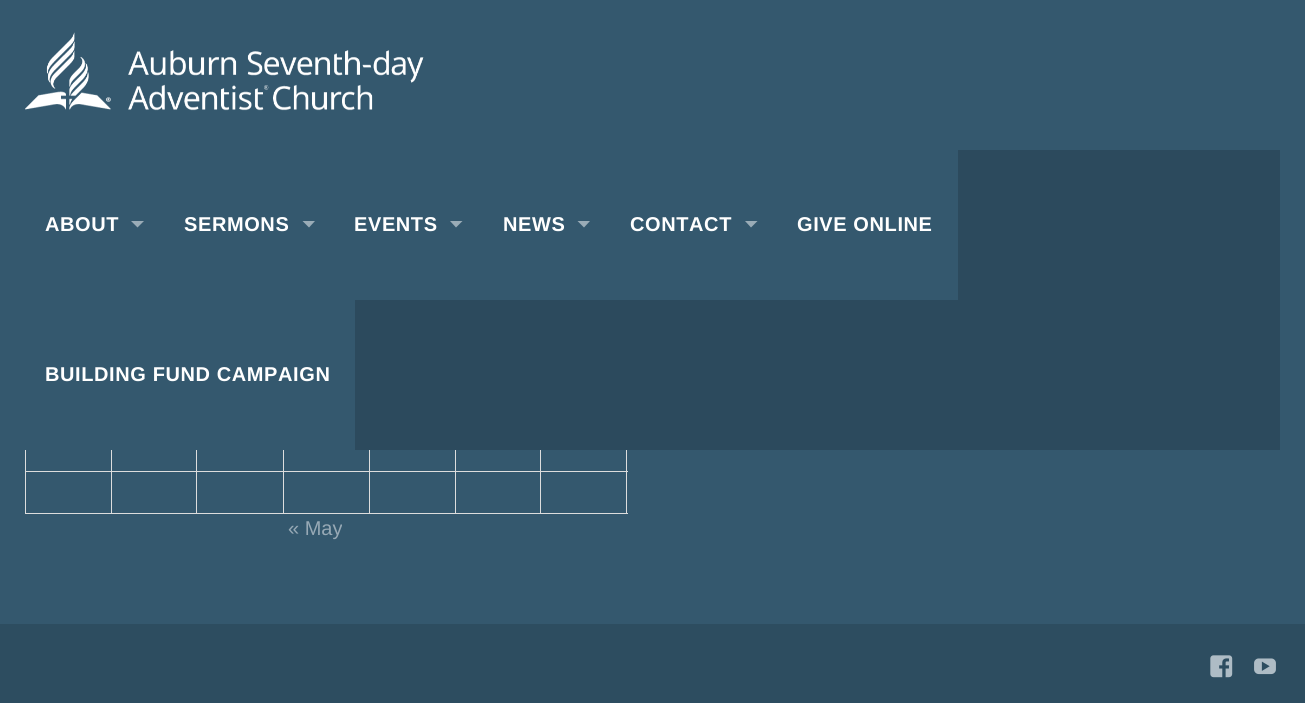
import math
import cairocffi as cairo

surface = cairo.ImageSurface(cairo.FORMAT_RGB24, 1305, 703)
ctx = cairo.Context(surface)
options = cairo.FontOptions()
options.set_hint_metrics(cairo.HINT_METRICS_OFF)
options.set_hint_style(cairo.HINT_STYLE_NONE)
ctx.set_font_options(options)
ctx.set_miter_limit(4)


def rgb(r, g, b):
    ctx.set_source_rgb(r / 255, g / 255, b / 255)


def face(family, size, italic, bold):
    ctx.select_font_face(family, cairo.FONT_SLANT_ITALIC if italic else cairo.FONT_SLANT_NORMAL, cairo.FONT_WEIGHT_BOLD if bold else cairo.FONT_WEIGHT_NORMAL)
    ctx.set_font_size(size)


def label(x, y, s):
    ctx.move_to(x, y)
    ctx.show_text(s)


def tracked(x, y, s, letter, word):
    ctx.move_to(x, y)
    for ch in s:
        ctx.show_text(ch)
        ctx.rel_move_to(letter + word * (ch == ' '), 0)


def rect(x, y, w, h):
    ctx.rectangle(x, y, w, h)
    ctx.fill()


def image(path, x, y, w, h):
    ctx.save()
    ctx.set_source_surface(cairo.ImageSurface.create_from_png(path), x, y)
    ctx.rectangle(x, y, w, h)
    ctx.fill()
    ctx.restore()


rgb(52, 88, 110)
ctx.paint()
image('image0.png', 25, 32, 399, 79)
rgb(44, 74, 93)
rect(355, 150, 925, 300)
face('Liberation Sans', 20, 0, 1)
rgb(255, 255, 255)
tracked(45, 231, 'ABOUT', 0.6, 0)
rgb(154, 172, 183)
ctx.new_path()
ctx.move_to(131, 221)
ctx.line_to(144, 221)
ctx.line_to(137.5, 227.5)
ctx.close_path()
ctx.fill()
rgb(255, 255, 255)
tracked(184, 231, 'SERMONS', 0.6, 0)
rgb(154, 172, 183)
ctx.new_path()
ctx.move_to(302.5, 221)
ctx.line_to(315, 221)
ctx.line_to(309, 227.5)
ctx.close_path()
ctx.fill()
rgb(52, 88, 110)
rect(355, 150, 423, 150)
rgb(255, 255, 255)
tracked(354, 231, 'EVENTS', 0.6, 0)
rgb(154, 172, 183)
ctx.new_path()
ctx.move_to(450, 221)
ctx.line_to(462.5, 221)
ctx.line_to(456, 227.5)
ctx.close_path()
ctx.fill()
rgb(255, 255, 255)
tracked(503, 231, 'NEWS', 0.6, 0)
rgb(154, 172, 183)
ctx.new_path()
ctx.move_to(577.5, 221)
ctx.line_to(590, 221)
ctx.line_to(584, 227.5)
ctx.close_path()
ctx.fill()
rgb(255, 255, 255)
tracked(630, 231, 'CONTACT', 0.6, 0)
rgb(154, 172, 183)
ctx.new_path()
ctx.move_to(745, 221)
ctx.line_to(757.5, 221)
ctx.line_to(751, 227.5)
ctx.close_path()
ctx.fill()
rgb(52, 88, 110)
rect(778, 150, 180, 150)
rgb(255, 255, 255)
tracked(797, 231, 'GIVE ONLINE', 0.6, 0)
tracked(45, 381, 'BUILDING FUND CAMPAIGN', 0.6, 0)
rgb(221, 221, 221)
rect(540, 471, 88, 1)
rect(626, 450, 1, 64)
rect(540, 513, 88, 1)
rect(540, 471, 1, 43)
rect(455, 471, 86, 1)
rect(455, 513, 86, 1)
rect(455, 471, 1, 43)
rect(369, 471, 87, 1)
rect(369, 513, 87, 1)
rect(369, 471, 1, 43)
rect(283, 471, 87, 1)
rect(283, 513, 87, 1)
rect(283, 471, 1, 43)
rect(196, 471, 88, 1)
rect(196, 513, 88, 1)
rect(196, 471, 1, 43)
rect(111, 471, 87, 1)
rect(111, 513, 87, 1)
rect(111, 471, 1, 43)
rect(25, 471, 88, 1)
rect(25, 513, 88, 1)
rect(25, 450, 1, 64)
rect(111, 450, 1, 23)
rect(196, 450, 1, 23)
rect(283, 450, 1, 23)
rect(369, 450, 1, 23)
rect(455, 450, 1, 23)
rect(540, 450, 1, 23)
face('Liberation Sans', 20, 0, 0)
rgb(151, 169, 181)
label(288, 535, '« May')
rgb(45, 77, 96)
rect(0, 624, 1305, 79)
image('image1.png', 1210, 655, 23, 23)
image('image2.png', 1254, 658, 22, 17)
surface.write_to_png('render.png')
